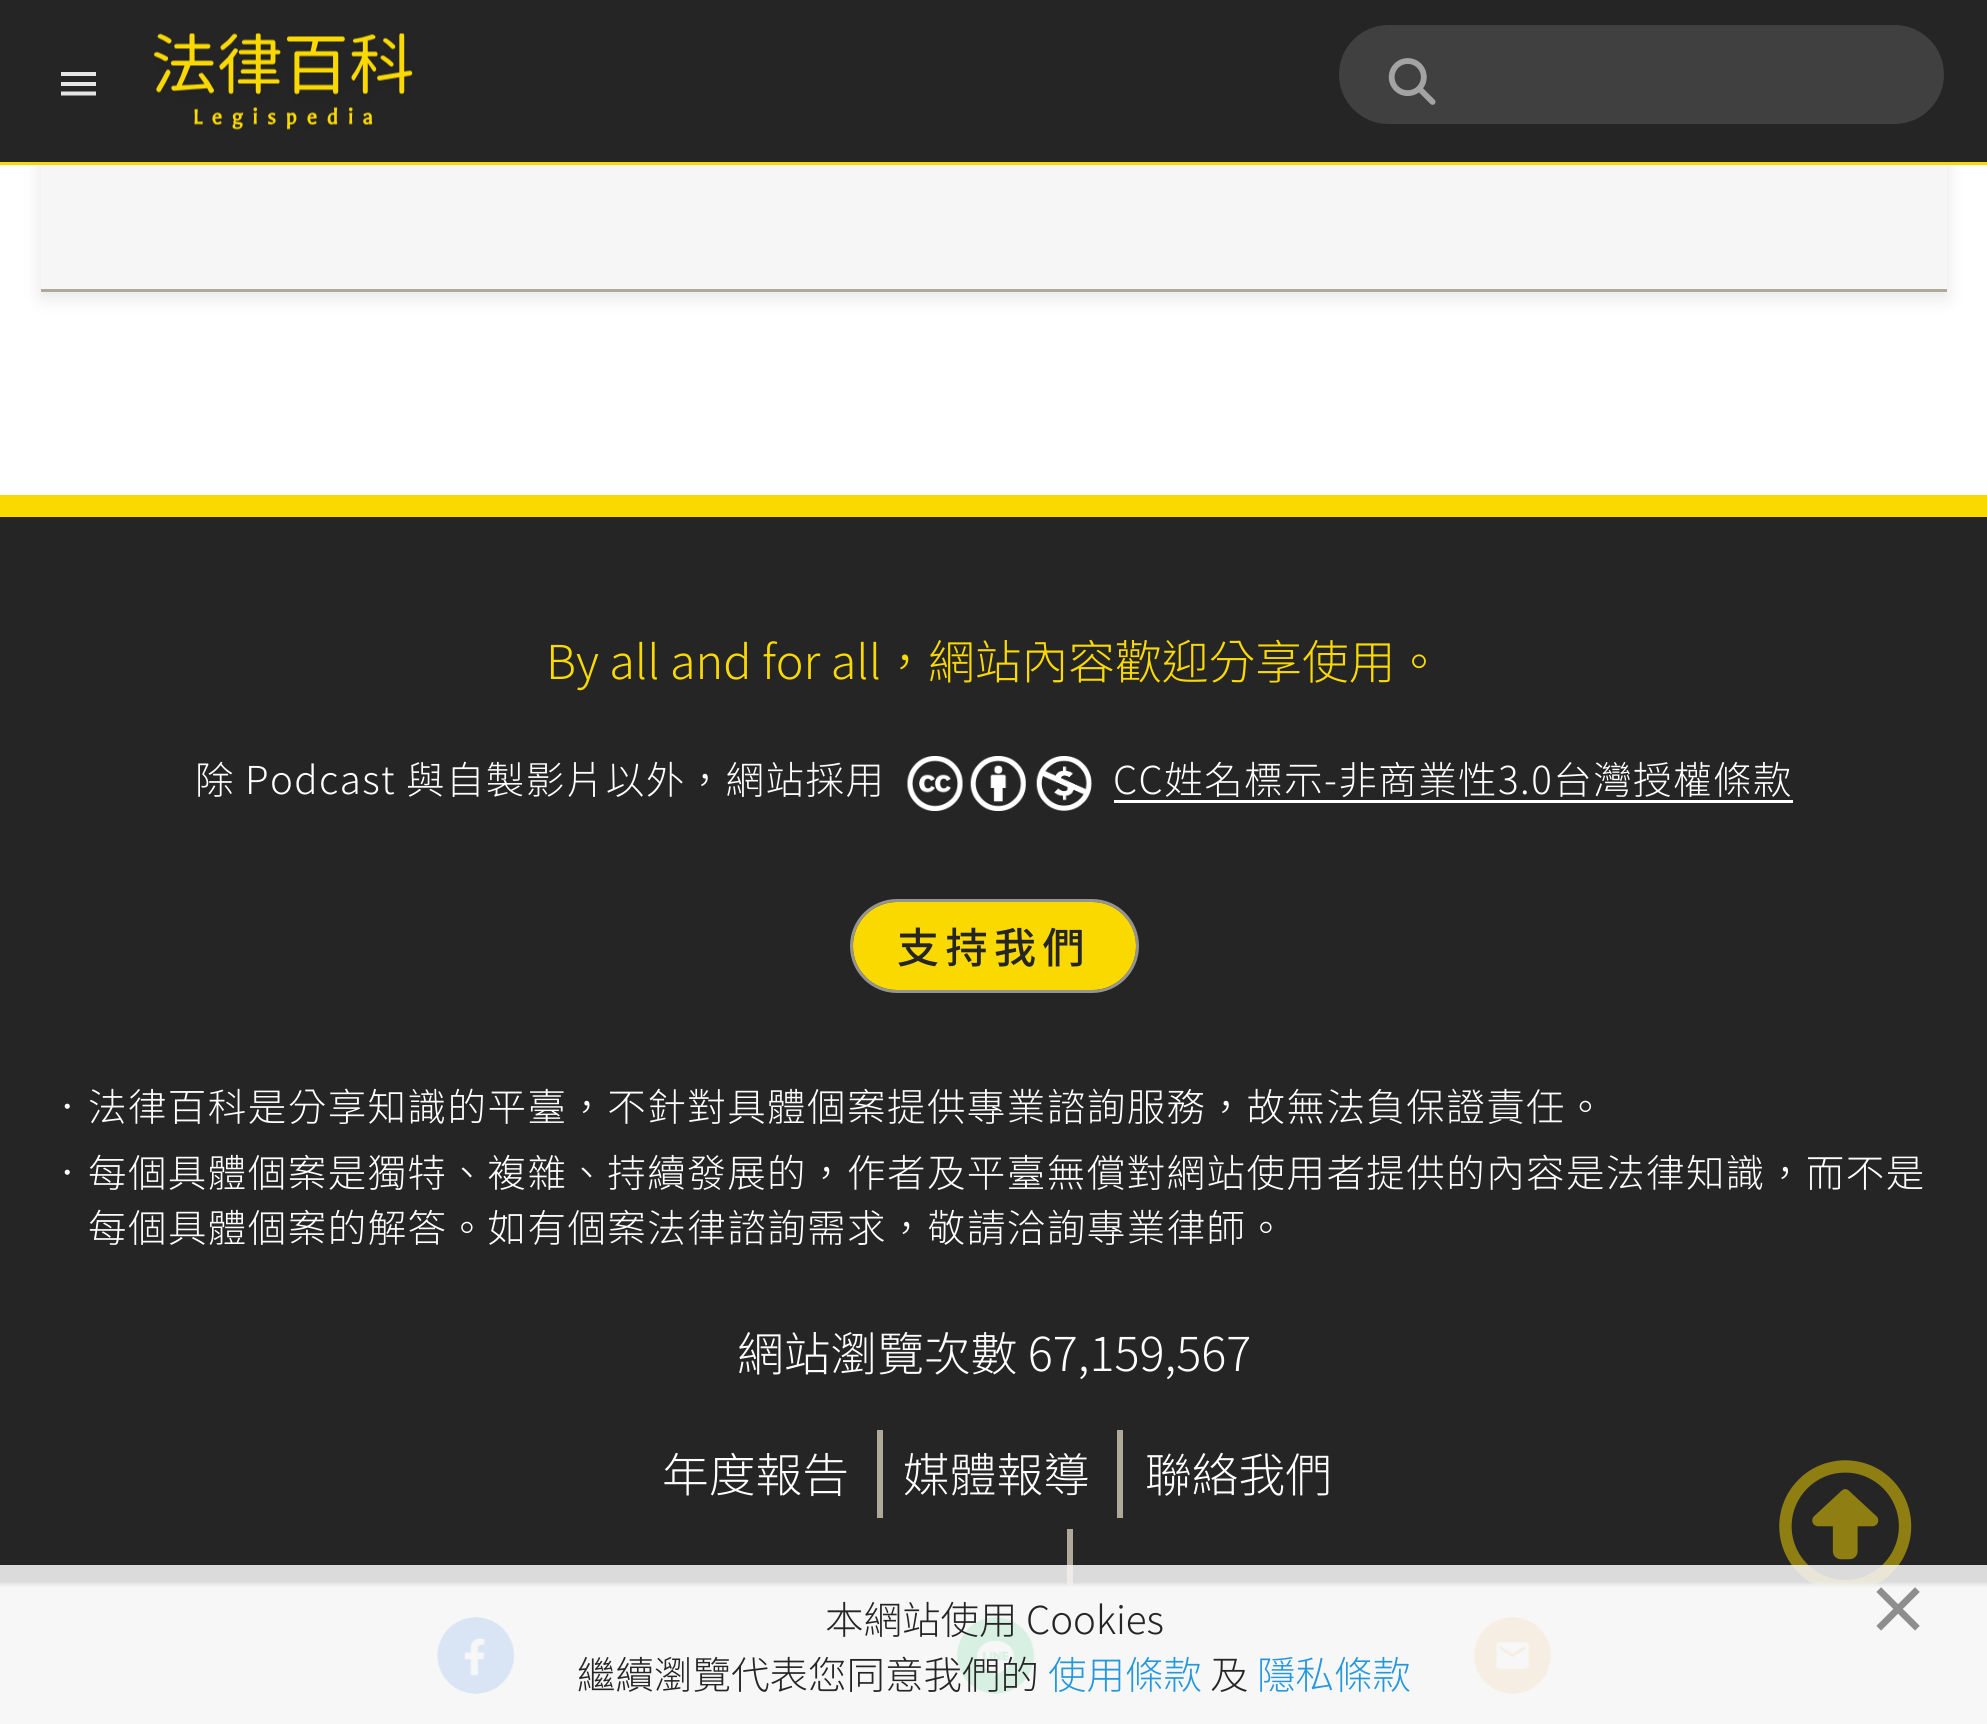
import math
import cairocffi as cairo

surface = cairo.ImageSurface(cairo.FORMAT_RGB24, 1987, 1724)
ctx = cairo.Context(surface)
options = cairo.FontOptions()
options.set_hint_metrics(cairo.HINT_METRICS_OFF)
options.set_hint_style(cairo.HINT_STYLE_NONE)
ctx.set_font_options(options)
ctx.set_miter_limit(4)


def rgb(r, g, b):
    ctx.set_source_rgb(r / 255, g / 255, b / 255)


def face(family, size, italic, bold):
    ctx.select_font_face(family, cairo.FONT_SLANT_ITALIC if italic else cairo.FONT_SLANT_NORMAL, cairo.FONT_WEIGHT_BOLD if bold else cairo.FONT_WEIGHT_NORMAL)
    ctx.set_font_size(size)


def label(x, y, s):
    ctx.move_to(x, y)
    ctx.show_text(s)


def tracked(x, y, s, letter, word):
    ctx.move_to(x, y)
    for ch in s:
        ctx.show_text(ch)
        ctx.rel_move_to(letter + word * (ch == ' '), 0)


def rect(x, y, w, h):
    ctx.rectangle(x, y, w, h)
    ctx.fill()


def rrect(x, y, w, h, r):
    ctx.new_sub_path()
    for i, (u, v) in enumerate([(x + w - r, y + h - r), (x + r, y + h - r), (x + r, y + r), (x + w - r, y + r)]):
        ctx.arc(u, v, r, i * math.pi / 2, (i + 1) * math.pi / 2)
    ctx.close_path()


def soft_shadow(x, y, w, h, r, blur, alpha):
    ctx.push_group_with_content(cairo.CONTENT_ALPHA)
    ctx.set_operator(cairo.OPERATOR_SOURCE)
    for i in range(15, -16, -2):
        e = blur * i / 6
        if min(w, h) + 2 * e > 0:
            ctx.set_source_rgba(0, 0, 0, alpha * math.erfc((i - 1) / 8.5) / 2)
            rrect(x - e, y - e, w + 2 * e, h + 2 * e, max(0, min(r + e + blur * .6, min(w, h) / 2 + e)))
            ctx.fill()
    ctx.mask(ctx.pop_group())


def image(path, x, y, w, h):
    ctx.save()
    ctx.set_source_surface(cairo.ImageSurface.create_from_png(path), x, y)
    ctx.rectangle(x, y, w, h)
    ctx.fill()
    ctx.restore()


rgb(255, 255, 255)
ctx.paint()
rgb(0, 0, 0)
soft_shadow(41, -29, 1906, 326, 0, 9.5, 0.1)
rgb(246, 246, 246)
rect(41, 165, 1906, 124)
rgb(175, 169, 156)
rect(41, 289, 1906, 3)
rgb(37, 37, 37)
rect(0, 517, 1987, 1070)
rgb(175, 169, 156)
rect(1067, 1529, 6, 58)
image('image8.png', 1779, 1460, 133, 127)
rgb(226, 223, 226)
soft_shadow(-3, 1584, 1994, 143, 0, 1.5, 1)
rgb(255, 255, 255)
rect(0, 1587, 1987, 137)
image('image0.png', 436, 1617, 79, 77)
image('image1.png', 956, 1617, 79, 77)
image('image2.png', 1473, 1617, 79, 77)
rgb(37, 37, 37)
rect(0, 0, 1987, 162)
rgb(250, 217, 0)
rect(0, 162, 1987, 3)
rgb(229, 229, 229)
ctx.new_path()
ctx.move_to(61, 72)
ctx.line_to(96, 72)
ctx.line_to(96, 76)
ctx.line_to(61, 76)
ctx.close_path()
ctx.move_to(61, 86)
ctx.line_to(61, 82)
ctx.line_to(96, 82)
ctx.line_to(96, 86)
ctx.close_path()
ctx.move_to(61, 95.5)
ctx.line_to(61, 91.5)
ctx.line_to(96, 91.5)
ctx.line_to(96, 95.5)
ctx.close_path()
ctx.fill()
image('image3.png', 154, 33, 259, 97)
rgb(64, 64, 64)
rrect(1339, 25, 605, 99, 49.5)
ctx.fill()
image('image4.png', 1388, 58, 48, 47)
rgb(250, 217, 0)
rect(0, 495, 1987, 22)
face('Noto Sans TC Light', 46.75, 0, 0)
label(546, 679, 'By all and for all，網站內容歡迎分享使用。')
face('Noto Sans TC Light', 38.5, 0, 0)
rgb(255, 255, 255)
tracked(195, 794, '除 Podcast 與自製影片以外，網站採用', 1.45, 0)
image('image5.png', 907, 756, 56, 55)
image('image6.png', 970, 756, 56, 55)
image('image7.png', 1036, 756, 56, 55)
tracked(1113, 794, 'CC姓名標示-非商業性3.0台灣授權條款', 1.45, 0)
rect(1114, 800, 679, 3)
rrect(851.5, 900.5, 286, 91, 45.5)
rgb(148, 148, 148)
ctx.set_line_width(3)
ctx.stroke()
rgb(250, 217, 0)
rrect(853, 902, 283, 88, 44)
ctx.fill()
face('Noto Sans TC Medium', 42, 0, 0)
rgb(37, 37, 37)
tracked(897, 963, '支持我們', 6.5, 0)
face('Noto Sans TC Light', 38.5, 0, 0)
rgb(255, 255, 255)
tracked(48, 1121, '．法律百科是分享知識的平臺，不針對具體個案提供專業諮詢服務，故無法負保證責任。', 1.45, 0)
tracked(48, 1187, '．每個具體個案是獨特、複雜、持續發展的，作者及平臺無償對網站使用者提供的內容是法律知識，而不是', 1.45, 0)
tracked(88, 1242, '每個具體個案的解答。如有個案法律諮詢需求，敬請洽詢專業律師。', 1.45, 0)
face('Noto Sans TC Light', 46.75, 0, 0)
label(737, 1371, '網站瀏覽次數 67,159,567')
label(662, 1492, '年度報告')
rgb(175, 169, 156)
rect(877, 1430, 6, 88)
rgb(255, 255, 255)
label(903, 1492, '媒體報導')
rgb(175, 169, 156)
rect(1117, 1430, 6, 88)
rgb(255, 255, 255)
label(1145, 1492, '聯絡我們')
ctx.set_source_rgba(0.965, 0.965, 0.965, 0.87)
rect(0, 1565, 1987, 159)
face('Noto Sans TC Light', 38.5, 0, 0)
rgb(37, 37, 37)
label(825, 1634, '本網站使用 Cookies')
face('Noto Sans TC', 66, 0, 1)
rgb(142, 142, 142)
label(1865, 1634, '×')
face('Noto Sans TC Light', 38.5, 0, 0)
rgb(37, 37, 37)
label(577, 1689, '繼續瀏覽代表您同意我們的')
rgb(36, 151, 221)
label(1048, 1689, '使用條款')
rgb(37, 37, 37)
label(1210, 1689, '及')
rgb(36, 151, 221)
label(1257, 1689, '隱私條款')
surface.write_to_png('render.png')
